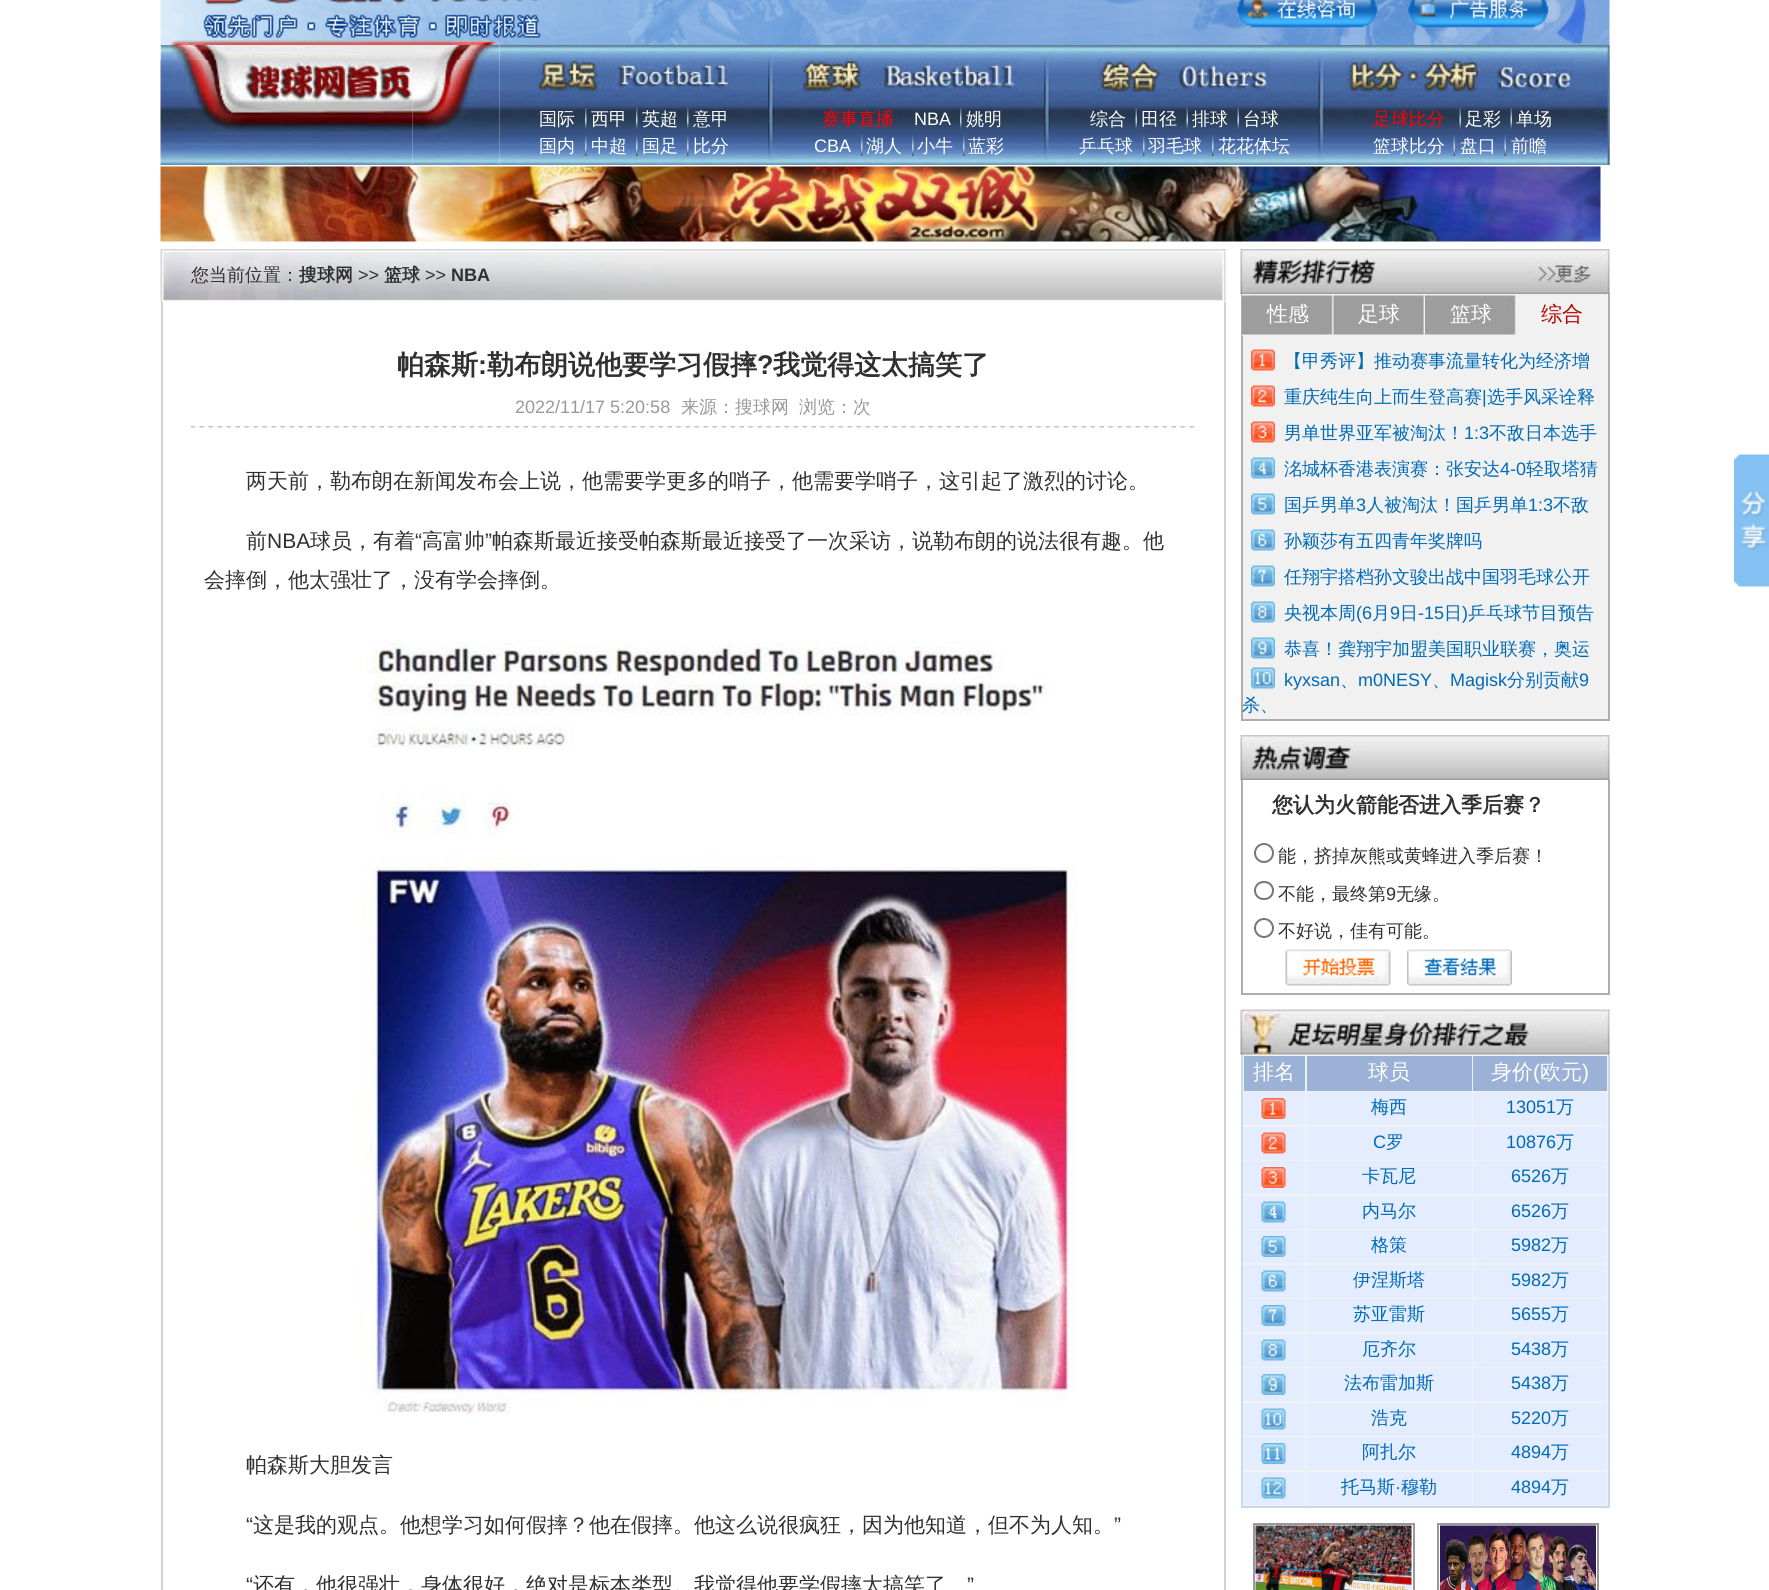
#include <cairo.h>
#include <math.h>
#include <stddef.h>

static cairo_t *c;
static void C(unsigned color){cairo_set_source_rgb(c, (color >> 16) / 255.0, (color >> 8 & 255) / 255.0, (color & 255) / 255.0);}
static void F(const char *family, double size, int italic, int bold){cairo_select_font_face(c, family, italic ? CAIRO_FONT_SLANT_ITALIC : CAIRO_FONT_SLANT_NORMAL,bold ? CAIRO_FONT_WEIGHT_BOLD : CAIRO_FONT_WEIGHT_NORMAL);cairo_set_font_size(c, size);}
static void T(double x, double y, const char *s){cairo_move_to(c, x, y);cairo_show_text(c, s);}
static void R(double x, double y, double w, double h){cairo_rectangle(c, x, y, w, h);cairo_fill(c);}
static void Q(double x, double y, double w, double h, double r){cairo_new_sub_path(c);cairo_arc(c, x + w - r, y + h - r, r, 0, M_PI / 2);cairo_arc(c, x + r, y + h - r, r, M_PI / 2, M_PI);cairo_arc(c, x + r, y + r, r, M_PI, 1.5 * M_PI);cairo_arc(c, x + w - r, y + r, r, 1.5 * M_PI, 2 * M_PI);cairo_close_path(c);}
static void I(const char *path, double x, double y, double w, double h){cairo_surface_t *image = cairo_image_surface_create_from_png(path);cairo_save(c);cairo_set_source_surface(c, image, x, y);cairo_rectangle(c, x, y, w, h);cairo_fill(c);cairo_restore(c);cairo_surface_destroy(image);}
int main(void) {
cairo_surface_t *surface = cairo_image_surface_create(CAIRO_FORMAT_RGB24, 1769, 1590);
c = cairo_create(surface);
cairo_font_options_t *options = cairo_font_options_create();
cairo_font_options_set_hint_metrics(options, CAIRO_HINT_METRICS_OFF);
cairo_font_options_set_hint_style(options, CAIRO_HINT_STYLE_NONE);
cairo_set_font_options(c, options);
cairo_set_miter_limit(c, 4);
C(0xffffff);
cairo_paint(c);
I("1.png",160,0,1450,45);
C(0xeaeef1);
R(412,45,88,120);
I("7.png",499,45,1111,120);
I("2.png",160,45,340,15);
I("3.png",160,60,80,105);
I("4.png",240,60,173,42);
I("5.png",412,60,88,105);
I("6.png",240,102,173,63);
I("8.png",538,58,193,34);
I("9.png",768,54,6,110);
I("10.png",801,58,217,34);
I("11.png",1044,57,6,106);
I("12.png",1098,58,173,34);
I("13.png",1318,54,7,111);
I("14.png",1345,58,229,34);
I("15.png",1594,45,16,120);
F("WenQuanYi Zen Hei Medium",18,0,0);
C(0xffffff);
T(539,125,"国际");
I("16.png",585,108,2,21);
T(591,125,"西甲");
I("17.png",636,108,2,21);
T(642,125,"英超");
I("18.png",687,108,2,21);
T(693,125,"意甲");
T(539,152,"国内");
I("19.png",585,135,2,21);
T(591,152,"中超");
I("20.png",636,135,2,21);
T(642,152,"国足");
I("21.png",687,135,2,21);
T(693,152,"比分");
C(0xff0000);
T(822,125,"赛事直播");
F("Liberation Sans",18,0,0);
C(0xffffff);
T(914,125,"NBA");
I("16.png",960,108,2,21);
F("WenQuanYi Zen Hei Medium",18,0,0);
T(966,125,"姚明");
F("Liberation Sans",18,0,0);
T(814,152,"CBA");
I("21.png",861,135,2,21);
F("WenQuanYi Zen Hei Medium",18,0,0);
T(866,152,"湖人");
I("21.png",912,135,2,21);
T(917,152,"小牛");
I("19.png",963,135,2,21);
T(968,152,"蓝彩");
T(1090,125,"综合");
I("22.png",1135,108,2,21);
T(1141,125,"田径");
I("22.png",1186,108,2,21);
T(1192,125,"排球");
I("23.png",1237,108,2,21);
T(1243,125,"台球");
T(1079,152,"乒乓球");
I("21.png",1143,135,2,21);
T(1148,152,"羽毛球");
I("19.png",1212,135,2,21);
T(1218,152,"花花体坛");
C(0xff0000);
T(1373,125,"足球比分");
I("24.png",1459,108,2,21);
C(0xffffff);
T(1465,125,"足彩");
I("24.png",1510,108,2,21);
T(1516,125,"单场");
T(1373,152,"篮球比分");
I("25.png",1453,135,2,21);
T(1460,152,"盘口");
I("26.png",1504,135,2,21);
T(1511,152,"前瞻");
I("27.png",160,166,1441,76);
I("28.png",160,249,1066,53);
C(0x303030);
T(191,281,"您当前位置：");
F("WenQuanYi Zen Hei",18,0,1);
T(299,281,"搜球网");
F("Liberation Sans",18,0,0);
T(358,281,">>");
F("WenQuanYi Zen Hei",18,0,1);
T(384,281,"篮球");
F("Liberation Sans",18,0,0);
T(425,281,">>");
F("Liberation Sans",18,0,1);
T(451,281,"NBA");
C(0xd2d2d2);
R(1224,302,2,1288);
R(161,302,2,1288);
I("29.png",190,426,1005,2);
F("WenQuanYi Zen Hei",27,0,1);
C(0x303030);
T(397,374,"帕森斯");
F("Liberation Sans",27,0,1);
T(478,374,":");
F("WenQuanYi Zen Hei",27,0,1);
T(487,374,"勒布朗说他要学习假摔");
F("Liberation Sans",27,0,1);
T(757,374,"?");
F("WenQuanYi Zen Hei",27,0,1);
T(773,374,"我觉得这太搞笑了");
F("Liberation Sans",18,0,0);
C(0x999999);
T(515,413,"2022/11/17 5:20:58");
F("WenQuanYi Zen Hei Medium",18,0,0);
T(681,413,"来源：搜球网");
T(799,413,"浏览：次");
F("WenQuanYi Zen Hei Medium",21,0,0);
C(0x303030);
T(246,488,"两天前，勒布朗在新闻发布会上说，他需要学更多的哨子，他需要学哨子，这引起了激烈的讨论。");
T(246,548,"前");
F("Liberation Sans",21,0,0);
T(267,548,"NBA");
F("WenQuanYi Zen Hei Medium",21,0,0);
T(310,548,"球员，有着");
F("Liberation Sans",21,0,0);
T(415,548,"“");
F("WenQuanYi Zen Hei Medium",21,0,0);
T(422,548,"高富帅");
F("Liberation Sans",21,0,0);
T(485,548,"”");
F("WenQuanYi Zen Hei Medium",21,0,0);
T(492,548,"帕森斯最近接受帕森斯最近接受了一次采访，说勒布朗的说法很有趣。他");
T(204,587,"会摔倒，他太强壮了，没有学会摔倒。");
I("30.png",359,640,718,775);
T(246,1472,"帕森斯大胆发言");
F("Liberation Sans",21,0,0);
T(246,1532,"“");
F("WenQuanYi Zen Hei Medium",21,0,0);
T(253,1532,"这是我的观点。他想学习如何假摔？他在假摔。他这么说很疯狂，因为他知道，但不为人知。");
F("Liberation Sans",21,0,0);
T(1114,1532,"”");
T(246,1592,"“");
F("WenQuanYi Zen Hei Medium",21,0,0);
T(253,1592,"还有，他很强壮，身体很好，绝对是标本类型。我觉得他要学假摔太搞笑了");
F("Liberation Sans",21,0,0);
T(967,1592,"”");
I("31.png",1240,249,370,45);
C(0xf1f1f1);
R(1243,294,365,425);
C(0xadadad);
R(1608,294,2,426);
R(1241,719,369,2);
R(1241,294,2,426);
I("32.png",1242,294,92,42);
F("WenQuanYi Zen Hei Medium",21,0,0);
C(0xffffff);
T(1267,321,"性感");
I("33.png",1333,294,92,42);
T(1358,321,"足球");
I("34.png",1425,294,92,41);
T(1450,321,"篮球");
C(0xebebeb);
R(1516,296,1,1);
C(0xb70000);
T(1541,321,"综合");
I("35.png",1251,349,24,22);
F("WenQuanYi Zen Hei Medium",18,0,0);
C(0x006ab5);
T(1284,367,"【甲秀评】推动赛事流量转化为经济增");
I("36.png",1251,385,24,22);
T(1284,403,"重庆纯生向上而生登高赛");
F("Liberation Sans",18,0,0);
T(1482,403,"|");
F("WenQuanYi Zen Hei Medium",18,0,0);
T(1487,403,"选手风采诠释");
I("37.png",1251,421,24,22);
T(1284,439,"男单世界亚军被淘汰！");
F("Liberation Sans",18,0,0);
T(1464,439,"1:3");
F("WenQuanYi Zen Hei Medium",18,0,0);
T(1489,439,"不敌日本选手");
I("38.png",1251,457,24,22);
T(1284,475,"洺城杯香港表演赛：张安达");
F("Liberation Sans",18,0,0);
T(1500,475,"4-0");
F("WenQuanYi Zen Hei Medium",18,0,0);
T(1526,475,"轻取塔猜");
I("39.png",1251,493,24,22);
T(1284,511,"国乒男单");
F("Liberation Sans",18,0,0);
T(1356,511,"3");
F("WenQuanYi Zen Hei Medium",18,0,0);
T(1366,511,"人被淘汰！国乒男单");
F("Liberation Sans",18,0,0);
T(1528,511,"1:3");
F("WenQuanYi Zen Hei Medium",18,0,0);
T(1553,511,"不敌");
I("40.png",1251,529,24,22);
T(1284,547,"孙颖莎有五四青年奖牌吗");
I("41.png",1251,565,24,22);
T(1284,583,"任翔宇搭档孙文骏出战中国羽毛球公开");
I("42.png",1251,601,24,22);
T(1284,619,"央视本周");
F("Liberation Sans",18,0,0);
T(1356,619,"(6");
F("WenQuanYi Zen Hei Medium",18,0,0);
T(1372,619,"月");
F("Liberation Sans",18,0,0);
T(1390,619,"9");
F("WenQuanYi Zen Hei Medium",18,0,0);
T(1400,619,"日");
F("Liberation Sans",18,0,0);
T(1418,619,"-15");
F("WenQuanYi Zen Hei Medium",18,0,0);
T(1444,619,"日");
F("Liberation Sans",18,0,0);
T(1462,619,")");
F("WenQuanYi Zen Hei Medium",18,0,0);
T(1468,619,"乒乓球节目预告");
I("43.png",1251,637,24,22);
T(1284,655,"恭喜！龚翔宇加盟美国职业联赛，奥运");
I("44.png",1251,667,24,22);
F("Liberation Sans",18,0,0);
T(1284,686,"kyxsan");
F("WenQuanYi Zen Hei Medium",18,0,0);
T(1340,686,"、");
F("Liberation Sans",18,0,0);
T(1358,686,"m0NESY");
F("WenQuanYi Zen Hei Medium",18,0,0);
T(1432,686,"、");
F("Liberation Sans",18,0,0);
T(1450,686,"Magisk");
F("WenQuanYi Zen Hei Medium",18,0,0);
T(1507,686,"分别贡献");
F("Liberation Sans",18,0,0);
T(1579,686,"9");
F("WenQuanYi Zen Hei Medium",18,0,0);
T(1242,711,"杀、");
I("45.png",1240,735,370,45);
C(0xadadad);
R(1608,780,2,215);
R(1241,993,369,2);
R(1241,780,2,215);
F("WenQuanYi Zen Hei",21,0,1);
C(0x303030);
T(1272,812,"您认为火箭能否进入季后赛？");
cairo_new_path(c);
cairo_arc(c,1264,853,9,0,2 * M_PI);
C(0x767676);
cairo_stroke(c);
F("WenQuanYi Zen Hei Medium",18,0,0);
C(0x303030);
T(1278,862,"能，挤掉灰熊或黄蜂进入季后赛！");
Q(1255,882,18,17,8.5);
C(0x767676);
cairo_stroke(c);
C(0x303030);
T(1278,900,"不能，最终第");
F("Liberation Sans",18,0,0);
T(1386,900,"9");
F("WenQuanYi Zen Hei Medium",18,0,0);
T(1396,900,"无缘。");
cairo_new_path(c);
cairo_arc(c,1264,928,9,0,2 * M_PI);
C(0x767676);
cairo_stroke(c);
C(0x303030);
T(1278,937,"不好说，佳有可能。");
I("46.png",1285,949,106,37);
I("47.png",1407,949,105,37);
I("48.png",1240,1009,370,46);
C(0xf1f1f1);
R(1243,1055,365,451);
C(0xc4dbeb);
R(1608,1055,2,453);
R(1241,1506,369,2);
R(1241,1055,2,453);
C(0x9cb1d6);
R(1244,1056,61,35);
F("WenQuanYi Zen Hei Medium",21,0,0);
C(0xffffff);
T(1253,1079,"排名");
C(0x9cb1d6);
R(1307,1056,165,35);
C(0xffffff);
T(1368,1079,"球员");
C(0x9cb1d6);
R(1473,1056,134,35);
C(0xffffff);
T(1491,1079,"身价");
F("Liberation Sans",21,0,0);
T(1533,1079,"(");
F("WenQuanYi Zen Hei Medium",21,0,0);
T(1540,1079,"欧元");
F("Liberation Sans",21,0,0);
T(1582,1079,")");
C(0xe4ecff);
R(1244,1092,61,33);
I("49.png",1261,1098,25,21);
R(1307,1092,165,33);
F("WenQuanYi Zen Hei Medium",18,0,0);
C(0x006ab5);
T(1371,1113,"梅西");
C(0xe4ecff);
R(1473,1092,134,33);
F("Liberation Sans",18,0,0);
C(0x006ab5);
T(1506,1113,"13051");
F("WenQuanYi Zen Hei Medium",18,0,0);
T(1556,1113,"万");
C(0xe4ecff);
R(1244,1127,61,33);
I("50.png",1261,1132,25,22);
R(1307,1127,165,33);
F("Liberation Sans",18,0,0);
C(0x006ab5);
T(1373,1148,"C");
F("WenQuanYi Zen Hei Medium",18,0,0);
T(1386,1148,"罗");
C(0xe4ecff);
R(1473,1127,134,33);
F("Liberation Sans",18,0,0);
C(0x006ab5);
T(1506,1148,"10876");
F("WenQuanYi Zen Hei Medium",18,0,0);
T(1556,1148,"万");
C(0xe4ecff);
R(1244,1161,61,33);
I("51.png",1261,1167,25,21);
R(1307,1161,165,33);
C(0x006ab5);
T(1362,1182,"卡瓦尼");
C(0xe4ecff);
R(1473,1161,134,33);
F("Liberation Sans",18,0,0);
C(0x006ab5);
T(1511,1182,"6526");
F("WenQuanYi Zen Hei Medium",18,0,0);
T(1551,1182,"万");
C(0xe4ecff);
R(1244,1196,61,33);
I("52.png",1261,1201,25,22);
R(1307,1196,165,33);
C(0x006ab5);
T(1362,1217,"内马尔");
C(0xe4ecff);
R(1473,1196,134,33);
F("Liberation Sans",18,0,0);
C(0x006ab5);
T(1511,1217,"6526");
F("WenQuanYi Zen Hei Medium",18,0,0);
T(1551,1217,"万");
C(0xe4ecff);
R(1244,1230,61,33);
I("53.png",1261,1236,25,21);
R(1307,1230,165,33);
C(0x006ab5);
T(1371,1251,"格策");
C(0xe4ecff);
R(1473,1230,134,33);
F("Liberation Sans",18,0,0);
C(0x006ab5);
T(1511,1251,"5982");
F("WenQuanYi Zen Hei Medium",18,0,0);
T(1551,1251,"万");
C(0xe4ecff);
R(1244,1265,61,33);
I("54.png",1261,1270,25,22);
R(1307,1265,165,33);
C(0x006ab5);
T(1353,1286,"伊涅斯塔");
C(0xe4ecff);
R(1473,1265,134,33);
F("Liberation Sans",18,0,0);
C(0x006ab5);
T(1511,1286,"5982");
F("WenQuanYi Zen Hei Medium",18,0,0);
T(1551,1286,"万");
C(0xe4ecff);
R(1244,1299,61,33);
I("55.png",1261,1305,25,21);
R(1307,1299,165,33);
C(0x006ab5);
T(1353,1320,"苏亚雷斯");
C(0xe4ecff);
R(1473,1299,134,33);
F("Liberation Sans",18,0,0);
C(0x006ab5);
T(1511,1320,"5655");
F("WenQuanYi Zen Hei Medium",18,0,0);
T(1551,1320,"万");
C(0xe4ecff);
R(1244,1334,61,33);
I("56.png",1261,1339,25,22);
R(1307,1334,165,33);
C(0x006ab5);
T(1362,1355,"厄齐尔");
C(0xe4ecff);
R(1473,1334,134,33);
F("Liberation Sans",18,0,0);
C(0x006ab5);
T(1511,1355,"5438");
F("WenQuanYi Zen Hei Medium",18,0,0);
T(1551,1355,"万");
C(0xe4ecff);
R(1244,1368,61,33);
I("57.png",1261,1374,25,21);
R(1307,1368,165,33);
C(0x006ab5);
T(1344,1389,"法布雷加斯");
C(0xe4ecff);
R(1473,1368,134,33);
F("Liberation Sans",18,0,0);
C(0x006ab5);
T(1511,1389,"5438");
F("WenQuanYi Zen Hei Medium",18,0,0);
T(1551,1389,"万");
C(0xe4ecff);
R(1244,1403,61,33);
I("58.png",1261,1408,25,22);
R(1307,1403,165,33);
C(0x006ab5);
T(1371,1424,"浩克");
C(0xe4ecff);
R(1473,1403,134,33);
F("Liberation Sans",18,0,0);
C(0x006ab5);
T(1511,1424,"5220");
F("WenQuanYi Zen Hei Medium",18,0,0);
T(1551,1424,"万");
C(0xe4ecff);
R(1244,1437,61,33);
I("59.png",1261,1443,25,21);
R(1307,1437,165,33);
C(0x006ab5);
T(1362,1458,"阿扎尔");
C(0xe4ecff);
R(1473,1437,134,33);
F("Liberation Sans",18,0,0);
C(0x006ab5);
T(1511,1458,"4894");
F("WenQuanYi Zen Hei Medium",18,0,0);
T(1551,1458,"万");
C(0xe4ecff);
R(1244,1472,61,33);
I("60.png",1261,1477,25,22);
R(1307,1472,165,33);
C(0x006ab5);
T(1341,1493,"托马斯");
F("Liberation Sans",18,0,0);
T(1395,1493,"·");
F("WenQuanYi Zen Hei Medium",18,0,0);
T(1401,1493,"穆勒");
C(0xe4ecff);
R(1473,1472,134,33);
F("Liberation Sans",18,0,0);
C(0x006ab5);
T(1511,1493,"4894");
F("WenQuanYi Zen Hei Medium",18,0,0);
T(1551,1493,"万");
cairo_rectangle(c,1254,1524,160,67);
C(0x999999);
cairo_stroke(c);
I("61.png",1255,1525,157,65);
cairo_rectangle(c,1438,1524,160,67);
cairo_stroke(c);
I("62.png",1440,1525,156,65);
I("63.png",1734,454,35,133);
cairo_surface_write_to_png(surface, "o.png");
cairo_font_options_destroy(options);
cairo_destroy(c);
cairo_surface_destroy(surface);
return 0;
}
